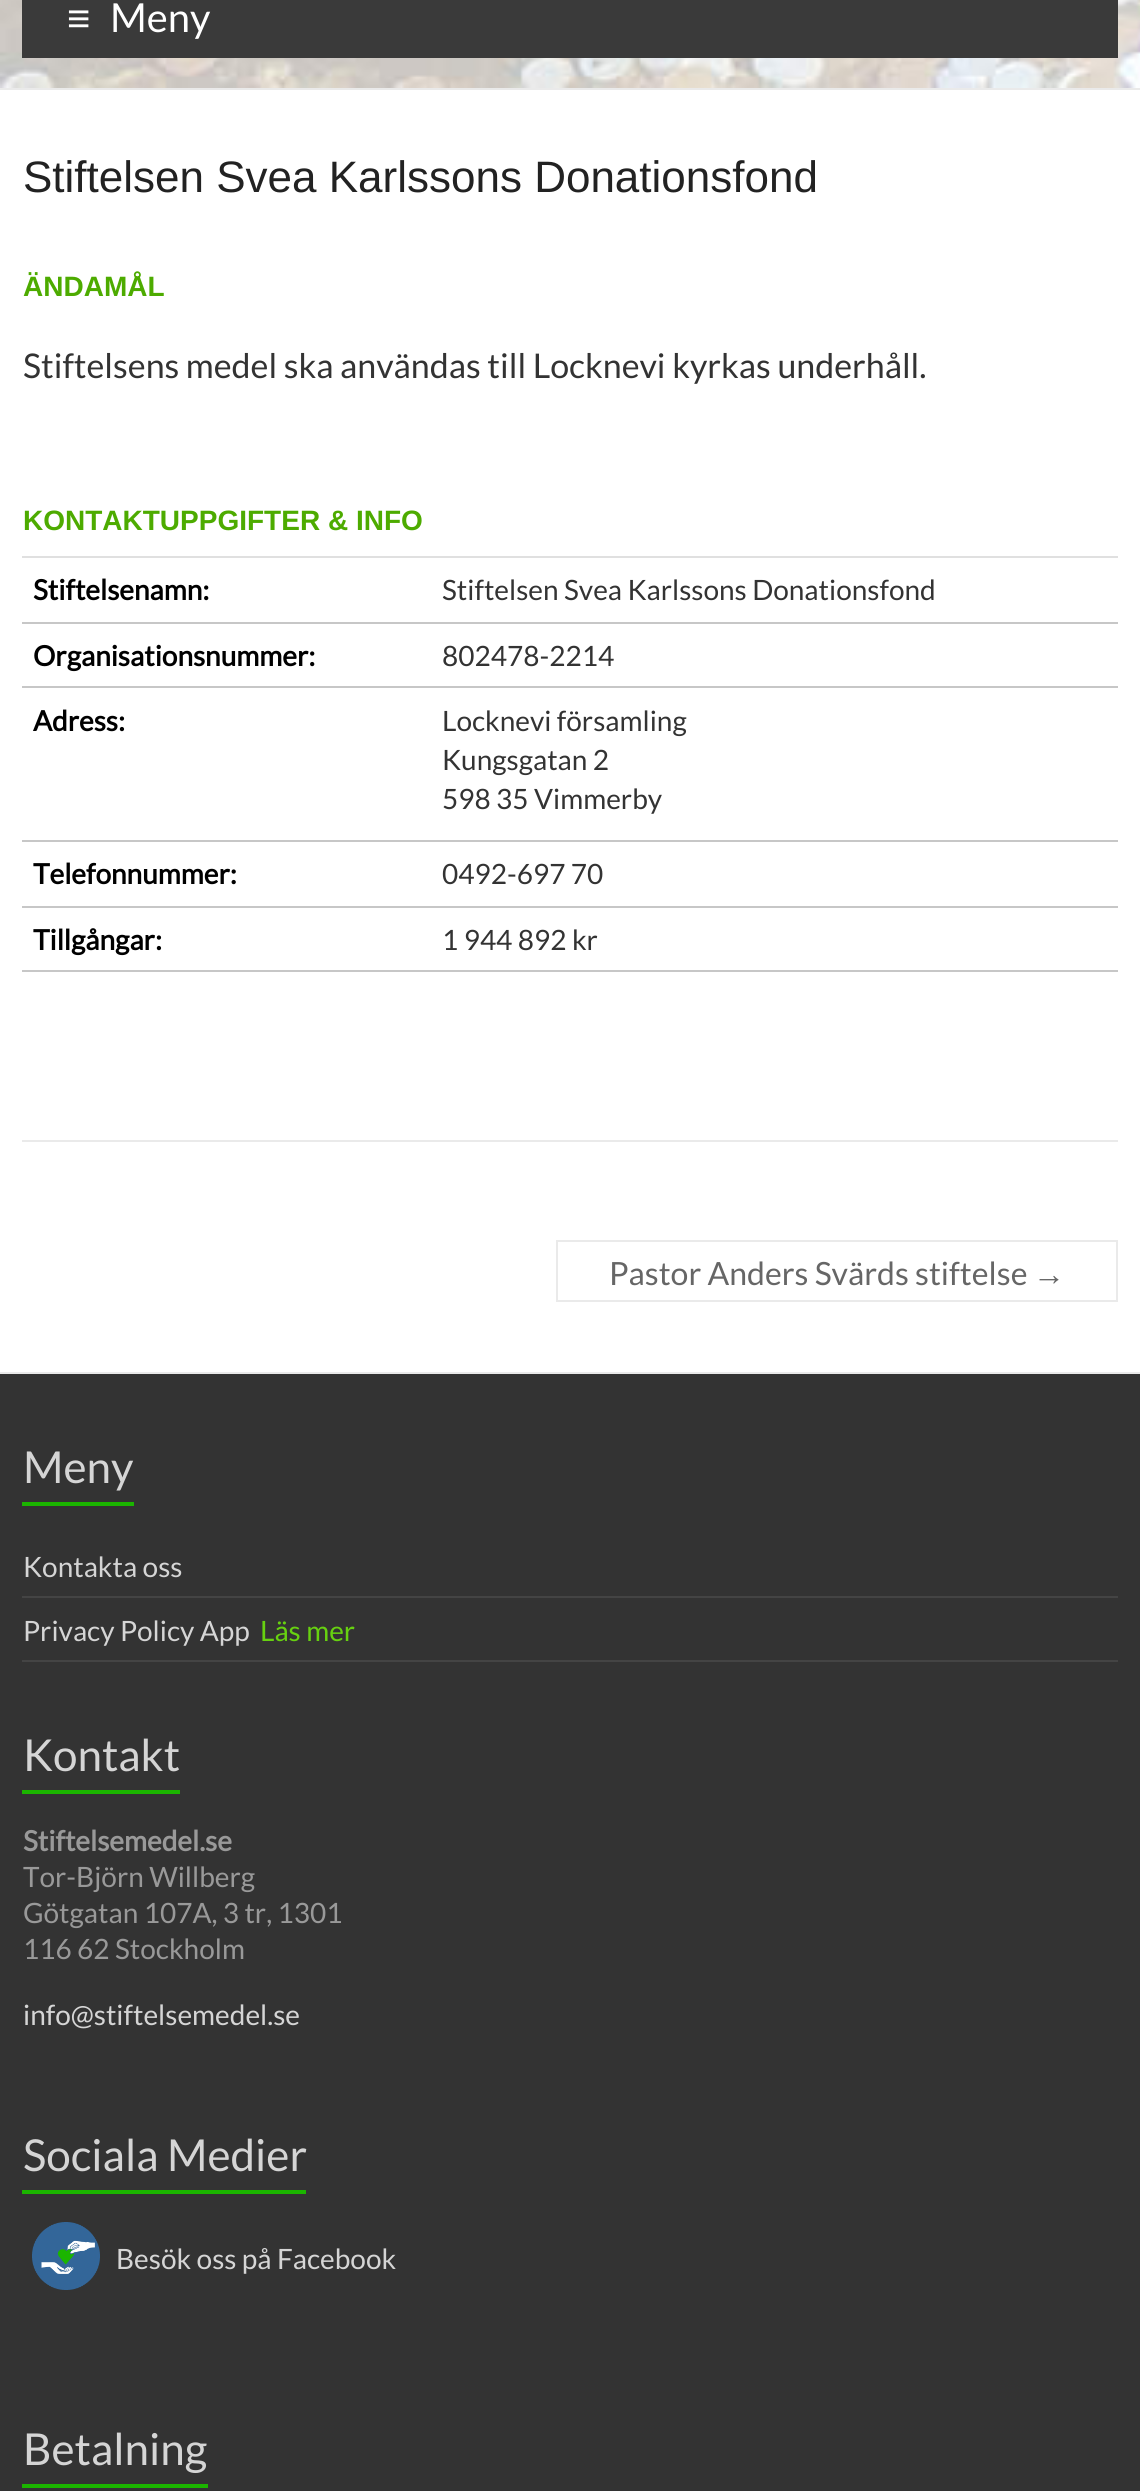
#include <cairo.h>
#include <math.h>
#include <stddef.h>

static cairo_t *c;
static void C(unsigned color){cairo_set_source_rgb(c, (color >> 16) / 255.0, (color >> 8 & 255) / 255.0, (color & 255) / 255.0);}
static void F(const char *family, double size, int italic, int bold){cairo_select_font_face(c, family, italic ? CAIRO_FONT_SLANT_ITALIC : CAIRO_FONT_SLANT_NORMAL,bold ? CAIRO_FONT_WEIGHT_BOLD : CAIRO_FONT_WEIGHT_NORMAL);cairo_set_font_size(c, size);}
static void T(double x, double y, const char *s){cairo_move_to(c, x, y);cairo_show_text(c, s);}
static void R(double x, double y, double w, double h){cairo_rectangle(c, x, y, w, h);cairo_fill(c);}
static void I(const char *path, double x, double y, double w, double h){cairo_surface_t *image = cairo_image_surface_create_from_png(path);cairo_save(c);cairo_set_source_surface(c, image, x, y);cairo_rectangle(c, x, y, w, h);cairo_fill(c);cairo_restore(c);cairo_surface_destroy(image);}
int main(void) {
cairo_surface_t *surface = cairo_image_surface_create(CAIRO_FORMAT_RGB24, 1140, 2491);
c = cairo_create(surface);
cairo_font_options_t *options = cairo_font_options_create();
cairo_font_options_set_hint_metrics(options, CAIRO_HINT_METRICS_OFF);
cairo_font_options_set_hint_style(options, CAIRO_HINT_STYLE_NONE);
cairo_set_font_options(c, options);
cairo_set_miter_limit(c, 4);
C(0xffffff);
cairo_paint(c);
I("1.png",0,0,1140,88);
C(0xeaeaea);
R(0,88,1140,2);
C(0x3a3a3a);
R(22,0,1096,58);
F("Liberation Sans",40,0,0);
C(0xffffff);
T(67,32,"≡");
F("Lato",40,0,0);
T(110,32,"Meny");
F("Liberation Sans",44,0,0);
C(0x222222);
T(23,192,"Stiftelsen Svea Karlssons Donationsfond");
F("Liberation Sans",28,0,1);
C(0x4dab00);
T(23,296,"ÄNDAMÅL");
F("Lato",34,0,0);
C(0x333333);
T(23,378,"Stiftelsens medel ska användas till Locknevi kyrkas underhåll.");
C(0xe0e0e0);
R(22,556,1096,2);
F("Liberation Sans",28,0,1);
C(0x4dab00);
T(23,530,"KONTAKTUPPGIFTER & INFO");
C(0xc7c7c7);
R(22,622,1096,2);
F("Lato",28,0,1);
C(0x000000);
T(33,600,"Stiftelsenamn:");
F("Lato",28,0,0);
C(0x333333);
T(442,600,"Stiftelsen Svea Karlssons Donationsfond");
C(0xc7c7c7);
R(22,686,1096,2);
F("Lato",28,0,1);
C(0x000000);
T(33,666,"Organisationsnummer:");
F("Lato",28,0,0);
C(0x333333);
T(442,666,"802478-2214");
C(0xc7c7c7);
R(22,840,1096,2);
F("Lato",28,0,1);
C(0x000000);
T(33,731,"Adress:");
F("Lato",28,0,0);
C(0x333333);
T(442,731,"Locknevi församling");
T(442,770,"Kungsgatan 2");
T(442,809,"598 35 Vimmerby");
C(0xc7c7c7);
R(22,906,1096,2);
F("Lato",28,0,1);
C(0x000000);
T(33,884,"Telefonnummer:");
F("Lato",28,0,0);
C(0x333333);
T(442,884,"0492-697 70");
C(0xc7c7c7);
R(22,970,1096,2);
F("Lato",28,0,1);
C(0x000000);
T(33,950,"Tillgångar:");
F("Lato",28,0,0);
C(0x333333);
T(442,950,"1 944 892 kr");
C(0xeaeaea);
R(22,1140,1096,2);
F("Lato",32,0,0);
C(0x666666);
T(609,1285,"Pastor Anders Svärds stiftelse");
C(0xeaeaea);
R(556,1240,562,2);
R(556,1300,478,2);
R(556,1240,2,62);
F("Liberation Sans",32,0,0);
C(0x666666);
T(1033,1285,"→");
C(0xeaeaea);
R(1116,1240,2,62);
R(1034,1300,84,2);
C(0x333333);
R(0,1374,1140,1117);
C(0xeaeaea);
R(0,1372,1140,2);
F("Lato",44,0,0);
C(0xd5d5d5);
T(23,1483,"Meny");
C(0x1bb500);
R(22,1502,112,4);
C(0x444444);
R(22,1596,1096,2);
F("Lato",28,0,0);
C(0xd5d5d5);
T(23,1577,"Kontakta oss");
C(0x444444);
R(22,1660,1096,2);
C(0xd5d5d5);
T(23,1641,"Privacy Policy App");
C(0x67d110);
T(260,1641,"Läs mer");
F("Lato",44,0,0);
C(0xd5d5d5);
T(23,1771,"Kontakt");
C(0x1bb500);
R(22,1790,158,4);
F("Lato",28,0,1);
C(0x999999);
T(23,1851,"Stiftelsemedel.se");
F("Lato",28,0,0);
T(23,1887,"Tor-Björn Willberg");
T(23,1923,"Götgatan 107A, 3 tr, 1301");
T(23,1959,"116 62 Stockholm");
C(0xd5d5d5);
T(23,2025,"info@stiftelsemedel.se");
F("Lato",44,0,0);
T(23,2171,"Sociala Medier");
C(0x1bb500);
R(22,2190,284,4);
I("2.png",32,2222,68,68);
F("Lato",28,0,0);
C(0xd5d5d5);
T(116,2269,"Besök oss på Facebook");
F("Lato",44,0,0);
T(23,2465,"Betalning");
C(0x1bb500);
R(22,2484,186,4);
cairo_surface_write_to_png(surface, "o.png");
cairo_font_options_destroy(options);
cairo_destroy(c);
cairo_surface_destroy(surface);
return 0;
}
